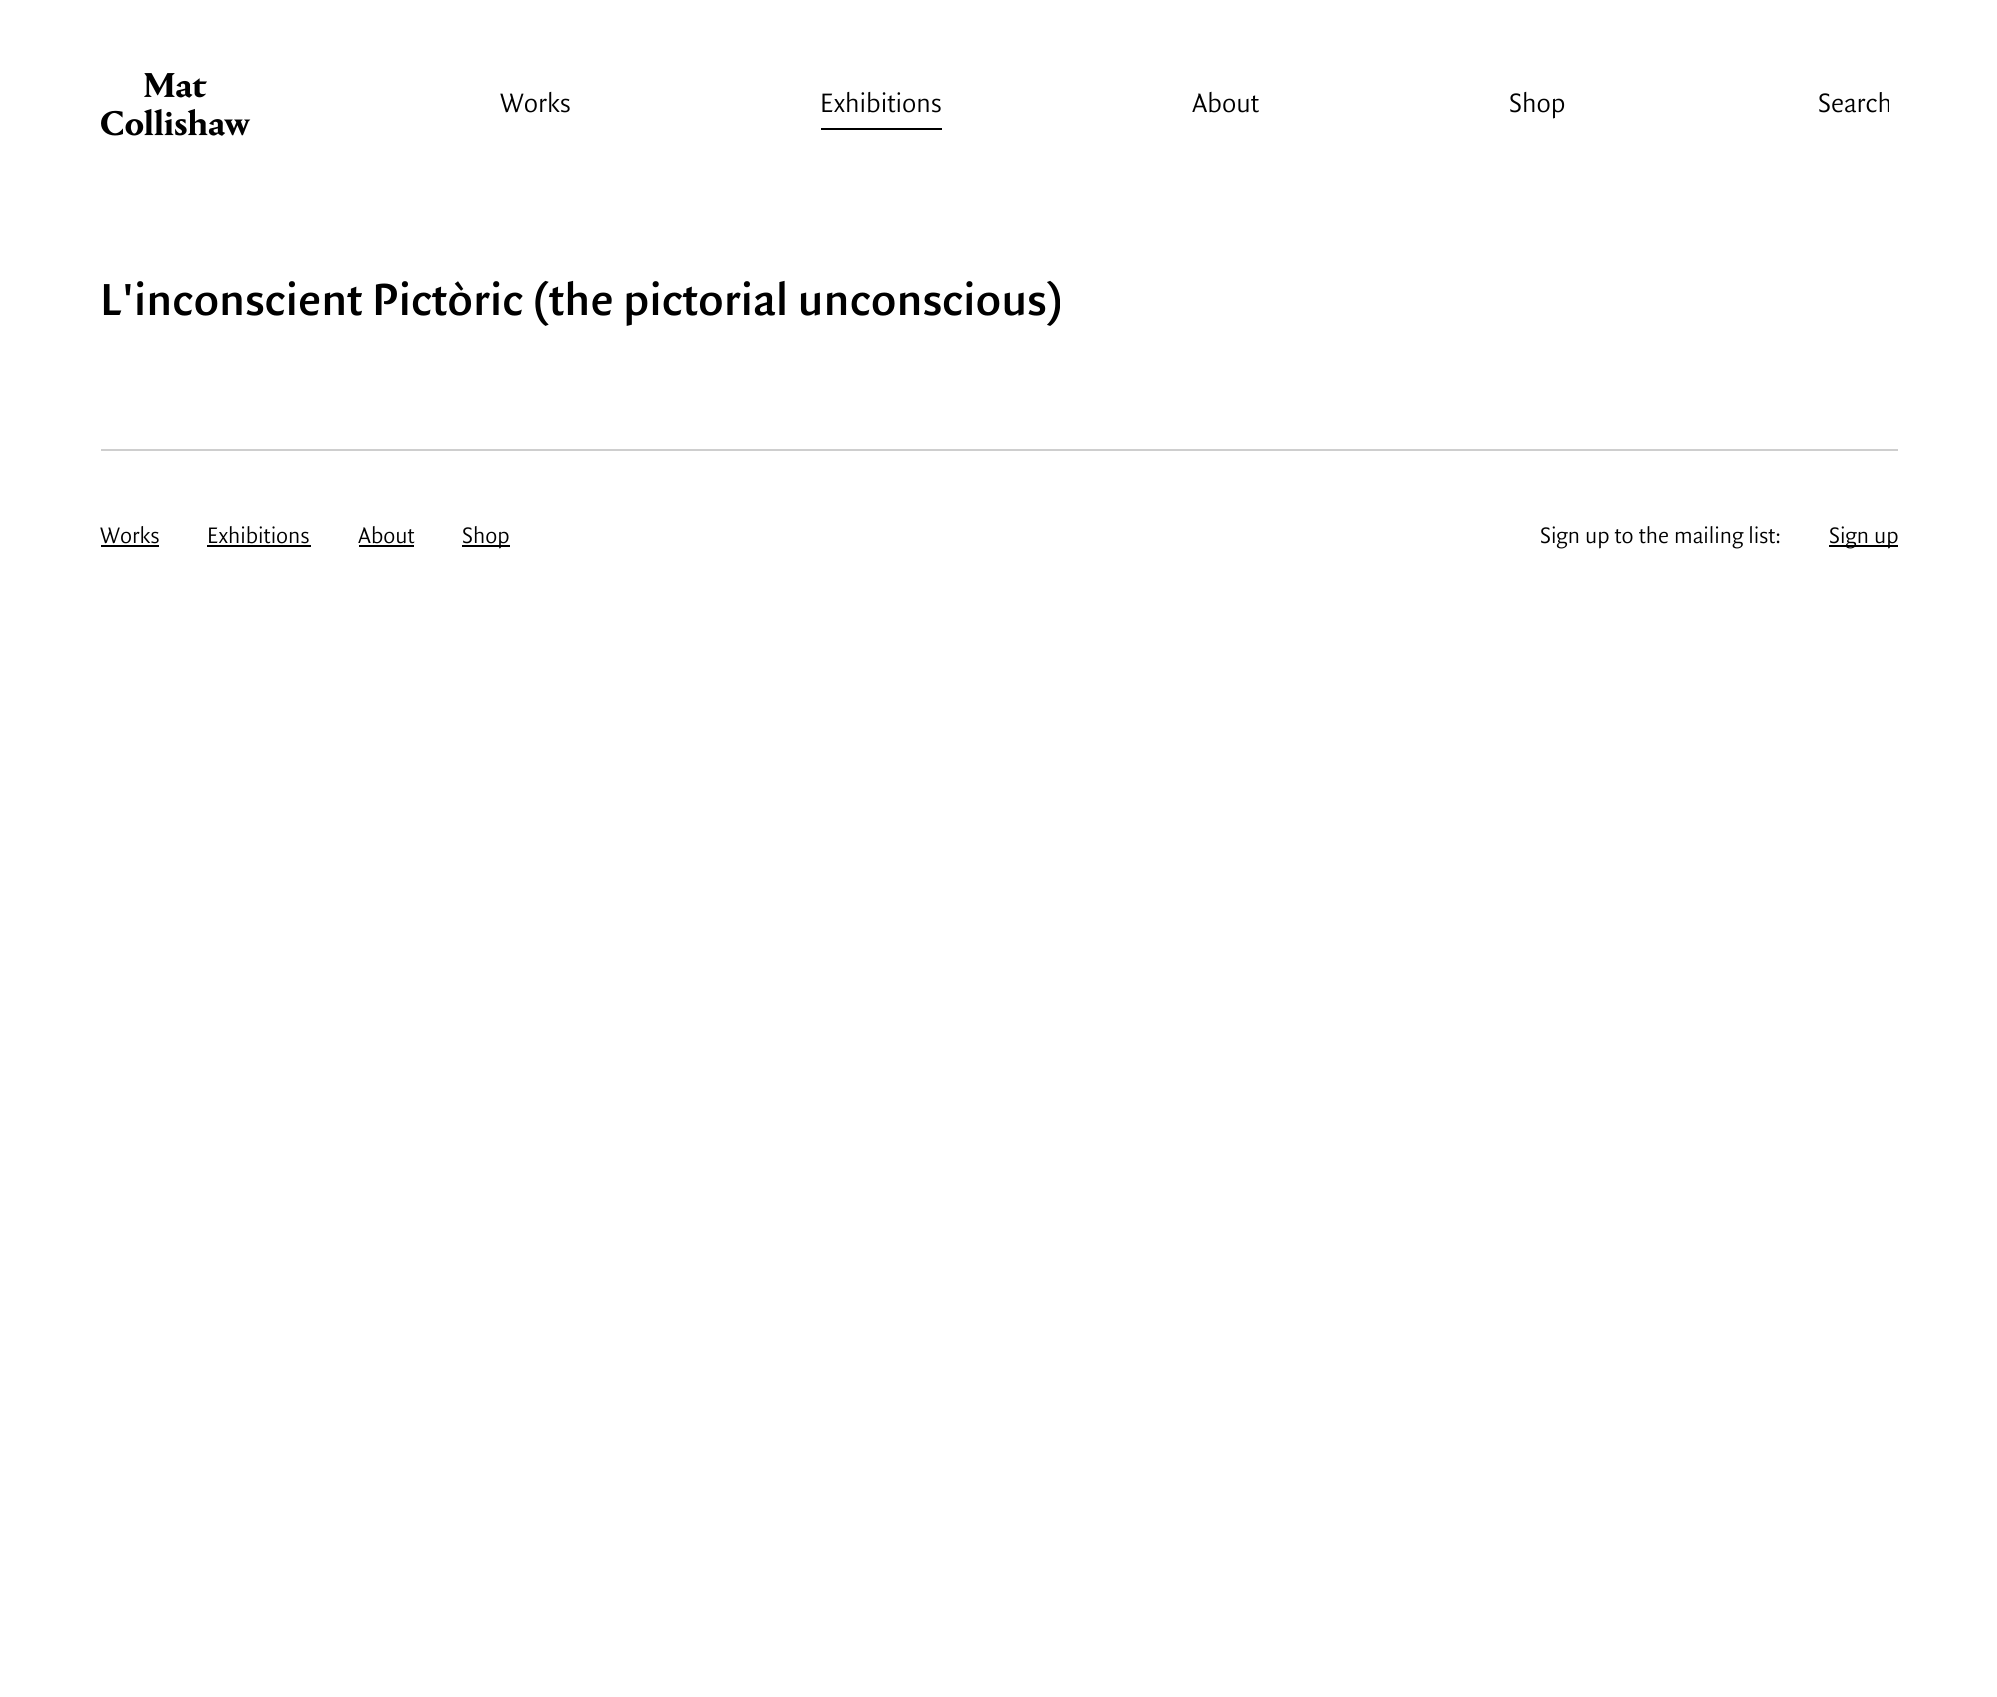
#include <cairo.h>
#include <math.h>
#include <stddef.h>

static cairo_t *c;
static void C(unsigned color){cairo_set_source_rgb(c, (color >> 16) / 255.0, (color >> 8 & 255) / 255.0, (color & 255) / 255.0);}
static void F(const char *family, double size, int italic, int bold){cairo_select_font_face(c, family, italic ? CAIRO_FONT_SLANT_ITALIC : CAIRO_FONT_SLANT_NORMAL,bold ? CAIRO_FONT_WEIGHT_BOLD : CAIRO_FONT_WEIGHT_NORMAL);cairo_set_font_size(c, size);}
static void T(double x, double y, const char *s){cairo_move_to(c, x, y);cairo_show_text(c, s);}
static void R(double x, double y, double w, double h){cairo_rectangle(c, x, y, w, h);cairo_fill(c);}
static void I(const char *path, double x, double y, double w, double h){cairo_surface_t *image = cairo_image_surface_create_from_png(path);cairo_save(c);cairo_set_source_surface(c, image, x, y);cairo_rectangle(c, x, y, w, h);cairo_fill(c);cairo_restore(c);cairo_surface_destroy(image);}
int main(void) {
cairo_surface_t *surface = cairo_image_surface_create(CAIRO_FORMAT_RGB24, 1997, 1697);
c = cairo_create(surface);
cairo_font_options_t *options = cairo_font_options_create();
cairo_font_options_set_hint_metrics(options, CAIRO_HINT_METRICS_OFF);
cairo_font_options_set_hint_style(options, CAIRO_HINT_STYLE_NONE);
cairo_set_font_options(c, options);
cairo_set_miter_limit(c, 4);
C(0xffffff);
cairo_paint(c);
I("1.png",101,73,150,63);
F("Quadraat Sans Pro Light",28.5,0,0);
C(0x000000);
T(500,112,"Works");
T(820,112,"Exhibitions");
R(821,128,121,2);
T(1192,112,"About");
T(1509,112,"Shop");
cairo_save(c);
cairo_rectangle(c,1818,92,71,28);
cairo_clip(c);
T(1818,112,"Search");
cairo_restore(c);
F("Quadraat Sans Pro SemiBold",48,0,0);
T(100,315,"L'inconscient Pictòric (the pictorial unconscious)");
C(0xcecece);
R(101,449,1797,2);
F("Quadraat Sans Pro Light",24,0,0);
C(0x000000);
T(100,543,"Works");
R(101,545,58,2);
T(207,543,"Exhibitions");
R(207,545,104,2);
T(358,543,"About");
R(359,545,55,2);
R(462,545,48,2);
T(462,543,"Shop");
T(1540,543,"Sign up to the mailing list:");
R(1829,545,69,2);
T(1829,543,"Sign up");
cairo_surface_write_to_png(surface, "o.png");
cairo_font_options_destroy(options);
cairo_destroy(c);
cairo_surface_destroy(surface);
return 0;
}
